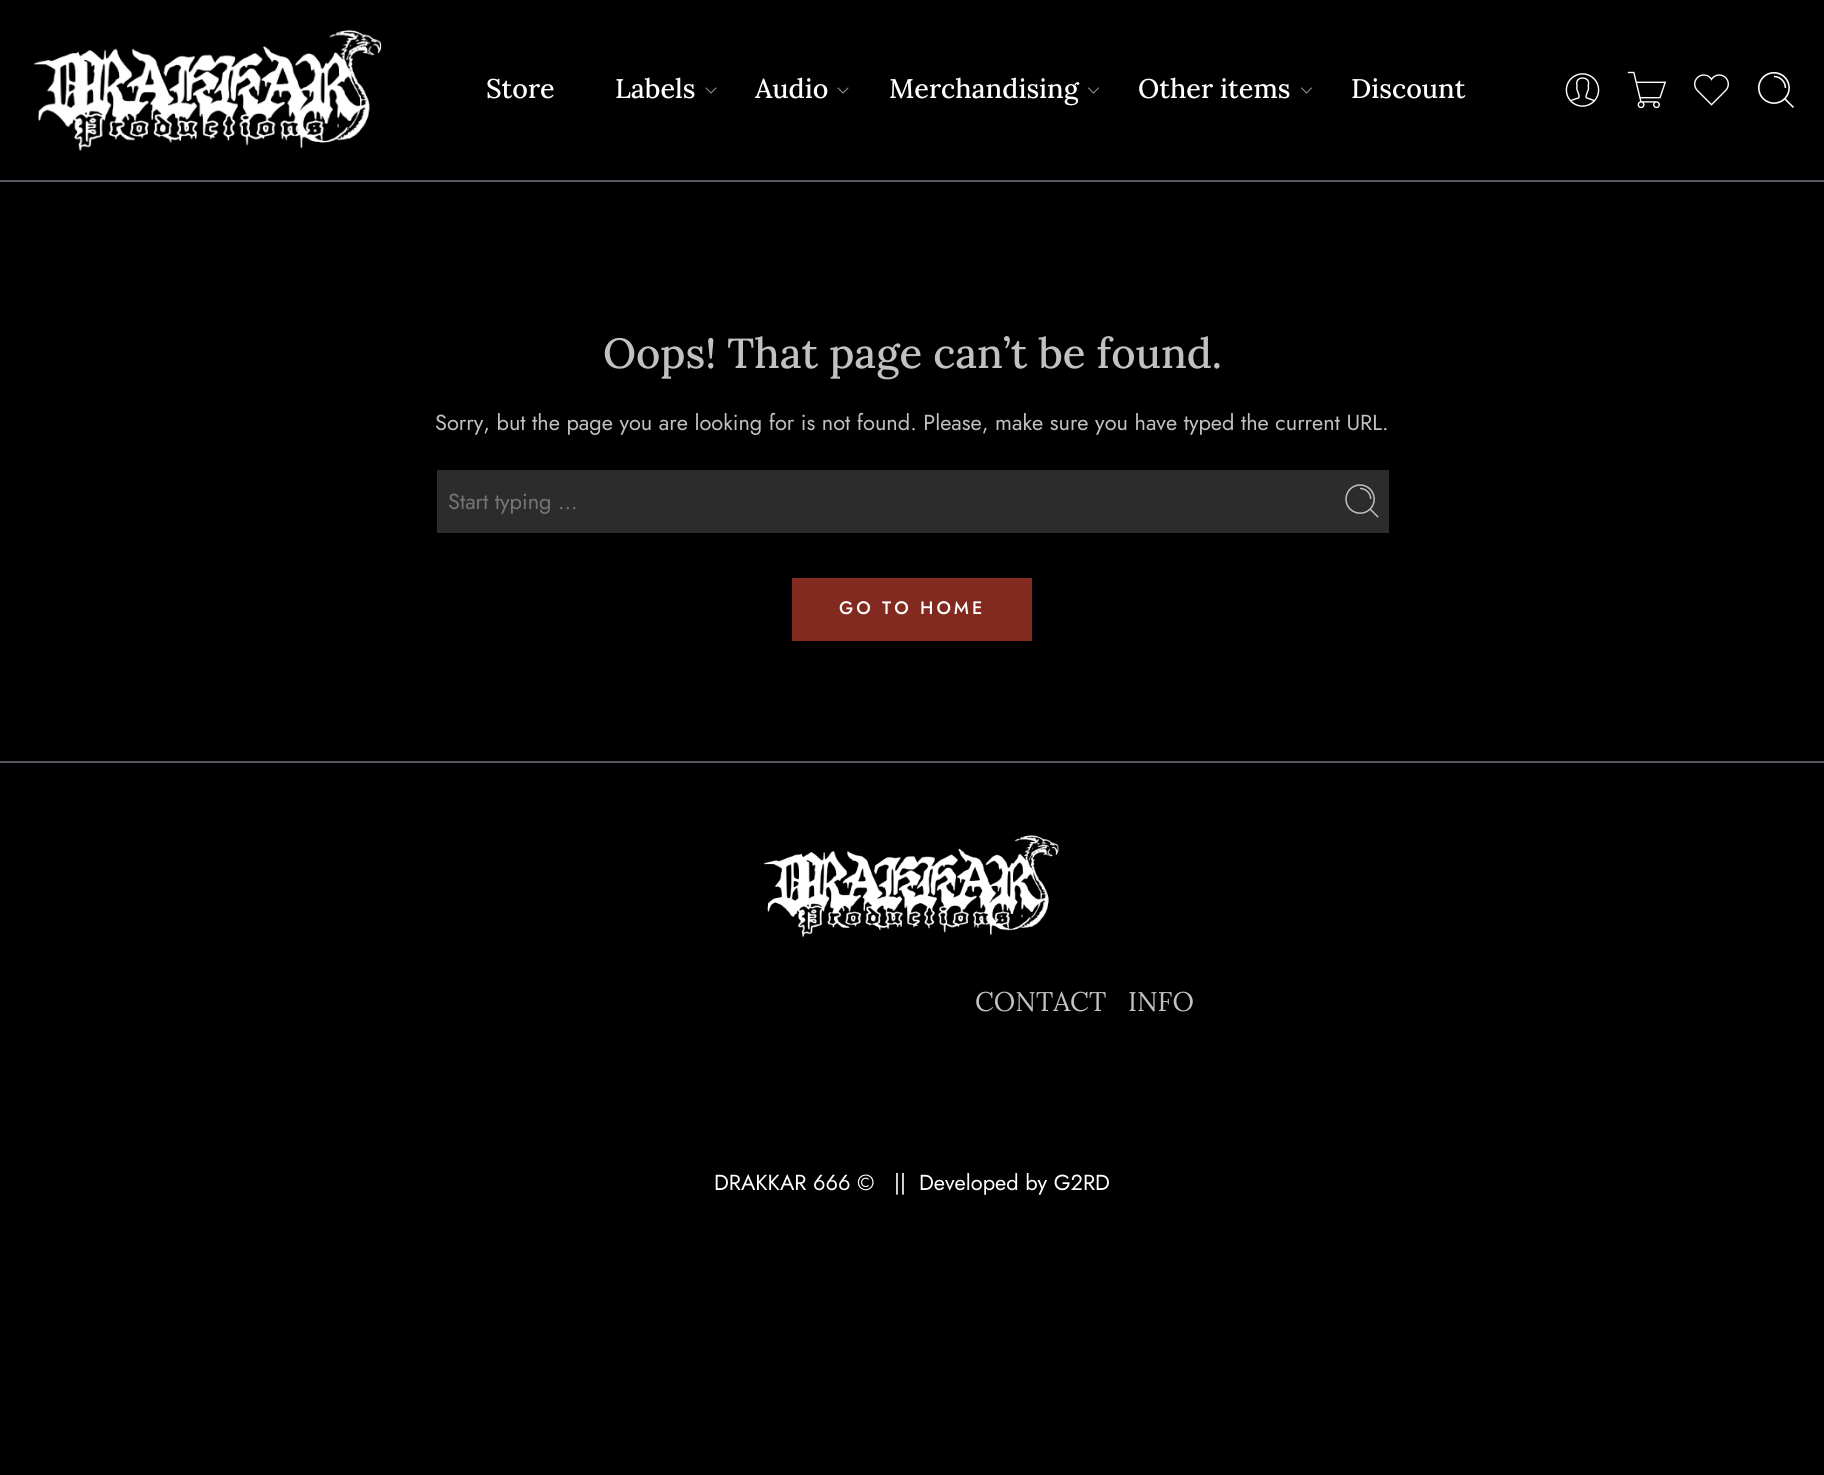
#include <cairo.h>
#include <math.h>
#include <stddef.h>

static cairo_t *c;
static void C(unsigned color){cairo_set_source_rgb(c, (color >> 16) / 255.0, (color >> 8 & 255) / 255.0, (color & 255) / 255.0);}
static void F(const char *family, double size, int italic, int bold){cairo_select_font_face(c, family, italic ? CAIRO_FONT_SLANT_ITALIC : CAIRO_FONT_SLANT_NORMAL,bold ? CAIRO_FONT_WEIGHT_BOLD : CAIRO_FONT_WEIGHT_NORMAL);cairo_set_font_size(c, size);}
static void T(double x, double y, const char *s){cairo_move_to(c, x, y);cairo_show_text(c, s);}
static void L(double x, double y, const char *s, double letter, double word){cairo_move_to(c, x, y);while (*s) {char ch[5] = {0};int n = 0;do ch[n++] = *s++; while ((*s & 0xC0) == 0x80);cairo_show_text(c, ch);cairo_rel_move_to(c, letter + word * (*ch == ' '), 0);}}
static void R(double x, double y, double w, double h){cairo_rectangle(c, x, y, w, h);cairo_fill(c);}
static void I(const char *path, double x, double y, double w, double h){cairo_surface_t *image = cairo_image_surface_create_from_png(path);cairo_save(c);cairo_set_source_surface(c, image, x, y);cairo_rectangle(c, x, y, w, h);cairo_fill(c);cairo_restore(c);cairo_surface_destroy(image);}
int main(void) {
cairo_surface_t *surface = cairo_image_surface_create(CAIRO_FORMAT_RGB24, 1824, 1475);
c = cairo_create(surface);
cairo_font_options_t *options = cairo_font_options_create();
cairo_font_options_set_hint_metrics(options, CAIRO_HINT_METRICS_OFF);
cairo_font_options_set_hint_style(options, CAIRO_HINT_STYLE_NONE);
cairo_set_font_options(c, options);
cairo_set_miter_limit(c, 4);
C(0x000000);
cairo_paint(c);
C(0x54595f);
R(0,180,1824,2);
I("1.png",33,30,349,121);
F("Lora Medium",27,0,0);
C(0xffffff);
T(486,98,"Store");
T(615,98,"Labels");
I("2.png",705,87,12,7);
T(755,98,"Audio");
I("2.png",837,87,12,7);
T(889,98,"Merchandising");
I("3.png",1088,87,11,7);
T(1138,98,"Other items");
I("3.png",1301,87,11,7);
T(1351,98,"Discount");
I("4.png",1565,73,35,34);
I("5.png",1627,71,40,38);
I("6.png",1694,74,35,32);
I("7.png",1757,72,37,36);
F("Lora Medium",42,0,0);
C(0xc1c1c1);
T(603,368,"Oops! That page can’t be found.");
F("Jost",21.75,0,0);
T(435,430,"Sorry, but the page you are looking for is not found. Please, make sure you have typed the current URL.");
C(0x2c2c2c);
R(437,470,952,63);
C(0x757575);
T(448,509,"Start typing ...");
I("8.png",1345,484,34,34);
C(0x822a20);
R(792,578,240,63);
F("Jost Medium",18,0,0);
C(0xffffff);
L(839,614,"GO TO HOME",3,0);
C(0x54595f);
R(0,761,1824,2);
I("9.png",763,835,296,102);
F("Lora",27,0,0);
C(0xc1c1c1);
T(975,1011,"CONTACT");
T(1128,1011,"INFO");
F("Jost",21.75,0,0);
C(0xffffff);
T(714,1190,"DRAKKAR 666 ©   ||  Developed by G2RD");
cairo_surface_write_to_png(surface, "o.png");
cairo_font_options_destroy(options);
cairo_destroy(c);
cairo_surface_destroy(surface);
return 0;
}
